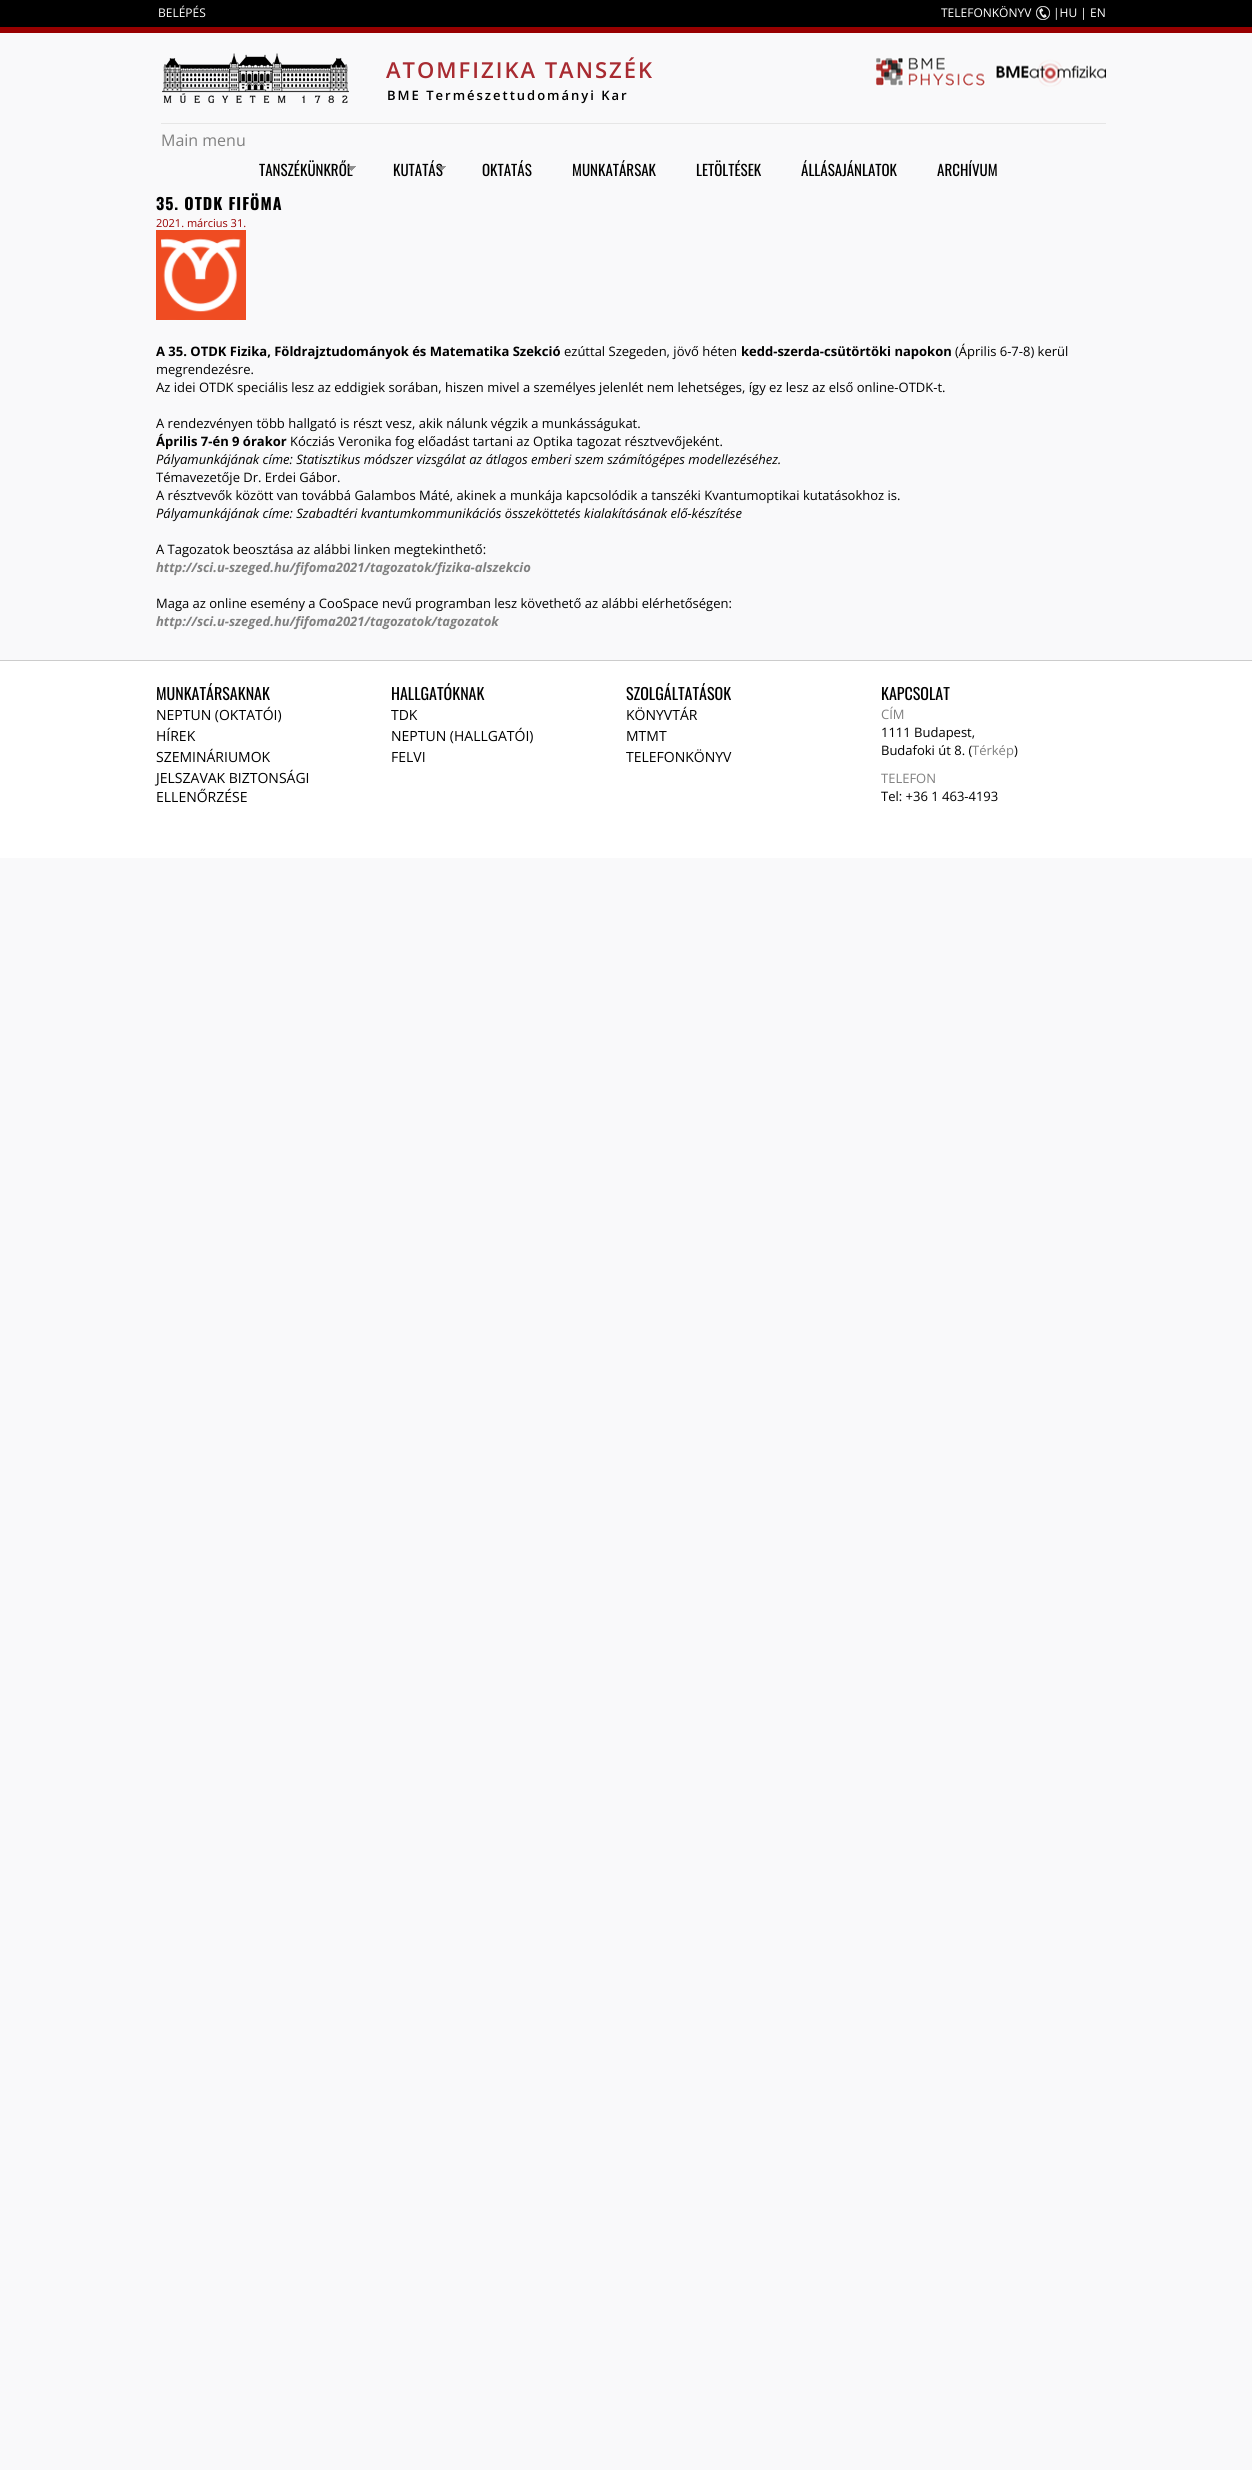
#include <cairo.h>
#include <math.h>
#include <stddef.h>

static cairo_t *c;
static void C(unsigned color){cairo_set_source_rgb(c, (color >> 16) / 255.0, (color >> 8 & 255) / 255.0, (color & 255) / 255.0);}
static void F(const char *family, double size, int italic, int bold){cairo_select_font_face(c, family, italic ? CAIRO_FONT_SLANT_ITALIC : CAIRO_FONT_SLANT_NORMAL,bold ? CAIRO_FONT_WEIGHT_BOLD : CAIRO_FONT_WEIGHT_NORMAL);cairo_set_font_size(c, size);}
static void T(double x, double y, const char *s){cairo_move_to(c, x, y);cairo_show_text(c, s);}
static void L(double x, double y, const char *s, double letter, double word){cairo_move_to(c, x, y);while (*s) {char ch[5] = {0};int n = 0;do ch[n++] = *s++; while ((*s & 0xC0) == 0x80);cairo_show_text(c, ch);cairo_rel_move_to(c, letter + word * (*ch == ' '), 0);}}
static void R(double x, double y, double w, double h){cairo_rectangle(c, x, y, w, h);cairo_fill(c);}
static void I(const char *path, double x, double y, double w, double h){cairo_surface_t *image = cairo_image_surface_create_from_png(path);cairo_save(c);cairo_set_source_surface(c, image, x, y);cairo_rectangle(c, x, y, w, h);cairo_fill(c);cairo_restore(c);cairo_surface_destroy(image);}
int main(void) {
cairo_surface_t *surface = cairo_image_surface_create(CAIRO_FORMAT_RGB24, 1252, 2470);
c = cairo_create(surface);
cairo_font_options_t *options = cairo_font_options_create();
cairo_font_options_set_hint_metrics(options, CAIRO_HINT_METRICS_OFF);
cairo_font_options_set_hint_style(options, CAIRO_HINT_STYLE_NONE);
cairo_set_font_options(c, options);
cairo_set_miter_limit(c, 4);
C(0xf9f9fa);
cairo_paint(c);
C(0x000000);
R(0,0,1252,27);
F("Open Sans",12,0,0);
C(0xffffff);
T(158,17,"BELÉPÉS");
T(941,17,"TELEFONKÖNYV");
I("1.png",1036,6,14,14);
T(1053,17,"|HU | EN");
C(0x980000);
R(0,27,1252,6);
I("2.png",162,53,187,50);
F("Open Sans SemiBold",22,0,0);
C(0xa82b31);
L(386,78,"ATOMFIZIKA TANSZÉK",2,0);
F("Open Sans SemiBold",13,0,0);
C(0x000000);
L(387,100,"BME Természettudományi Kar",2,0);
I("3.png",876,57,230,30);
C(0xe6e6e6);
R(161,123,945,1);
F("Open Sans",16,0,0);
C(0x808080);
T(161,146,"Main menu");
F("Oswald",15,0,0);
C(0x000000);
T(259,176,"TANSZÉKÜNKRŐL");
I("4.png",347,166,9,5);
T(393,176,"KUTATÁS");
I("5.png",437,166,9,5);
T(482,176,"OKTATÁS");
T(572,176,"MUNKATÁRSAK");
T(696,176,"LETÖLTÉSEK");
T(801,176,"ÁLLÁSAJÁNLATOK");
T(937,176,"ARCHÍVUM");
F("Oswald",16,0,1);
L(156,210,"35. OTDK FIFÖMA",1,0);
F("Open Sans",11,0,0);
C(0x980000);
T(156,227,"2021. március 31.");
I("6.png",156,230,90,90);
F("Open Sans",13,0,1);
C(0x000000);
T(156,356,"A 35. OTDK Fizika, Földrajztudományok és Matematika Szekció");
F("Open Sans",13,0,0);
T(564,356,"ezúttal Szegeden, jövő héten");
F("Open Sans",13,0,1);
T(741,356,"kedd-szerda-csütörtöki napokon");
F("Open Sans",13,0,0);
T(955,356,"(Április 6-7-8) kerül");
T(156,374,"megrendezésre.");
T(156,392,"Az idei OTDK speciális lesz az eddigiek sorában, hiszen mivel a személyes jelenlét nem lehetséges, így ez lesz az első online-OTDK-t.");
T(156,428,"A rendezvényen több hallgató is részt vesz, akik nálunk végzik a munkásságukat.");
F("Open Sans",13,0,1);
T(156,446,"Április 7-én 9 órakor");
F("Open Sans",13,0,0);
T(290,446,"Kócziás Veronika fog előadást tartani az Optika tagozat résztvevőjeként.");
F("Open Sans",13,1,0);
T(156,464,"Pályamunkájának címe: Statisztikus módszer vizsgálat az átlagos emberi szem számítógépes modellezéséhez.");
F("Open Sans",13,0,0);
T(156,482,"Témavezetője Dr. Erdei Gábor.");
T(156,500,"A résztvevők között van továbbá Galambos Máté, akinek a munkája kapcsolódik a tanszéki Kvantumoptikai kutatásokhoz is.");
F("Open Sans",13,1,0);
T(156,518,"Pályamunkájának címe: Szabadtéri kvantumkommunikációs összeköttetés kialakításának elő-készítése");
F("Open Sans",13,0,0);
T(156,554,"A Tagozatok beosztása az alábbi linken megtekinthető:");
F("Open Sans",13,1,1);
C(0x808080);
T(156,572,"http://sci.u-szeged.hu/fifoma2021/tagozatok/fizika-alszekcio");
F("Open Sans",13,0,0);
C(0x000000);
T(156,608,"Maga az online esemény a CooSpace nevű programban lesz követhető az alábbi elérhetőségen:");
F("Open Sans",13,1,1);
C(0x808080);
T(156,626,"http://sci.u-szeged.hu/fifoma2021/tagozatok/tagozatok");
C(0xffffff);
R(0,661,1252,197);
C(0xcccccc);
R(0,660,1252,1);
F("Oswald",16,0,0);
C(0x000000);
T(156,700,"MUNKATÁRSAKNAK");
F("Open Sans",14,0,0);
T(156,720,"NEPTUN (OKTATÓI)");
T(156,741,"HÍREK");
T(156,762,"SZEMINÁRIUMOK");
T(156,783,"JELSZAVAK BIZTONSÁGI");
T(156,802,"ELLENŐRZÉSE");
F("Oswald",16,0,0);
T(391,700,"HALLGATÓKNAK");
F("Open Sans",14,0,0);
T(391,720,"TDK");
T(391,741,"NEPTUN (HALLGATÓI)");
T(391,762,"FELVI");
F("Oswald",16,0,0);
T(626,700,"SZOLGÁLTATÁSOK");
F("Open Sans",14,0,0);
T(626,720,"KÖNYVTÁR");
T(626,741,"MTMT");
T(626,762,"TELEFONKÖNYV");
F("Oswald",16,0,0);
T(881,700,"KAPCSOLAT");
F("Open Sans",13,0,0);
C(0x808080);
T(881,719,"CÍM");
C(0x000000);
T(881,737,"1111 Budapest,");
T(881,755,"Budafoki út 8. (");
C(0x808080);
T(972,755,"Térkép");
C(0x000000);
T(1014,755,")");
C(0x808080);
T(881,783,"TELEFON");
C(0x000000);
T(881,801,"Tel: +36 1 463-4193");
cairo_surface_write_to_png(surface, "o.png");
cairo_font_options_destroy(options);
cairo_destroy(c);
cairo_surface_destroy(surface);
return 0;
}
